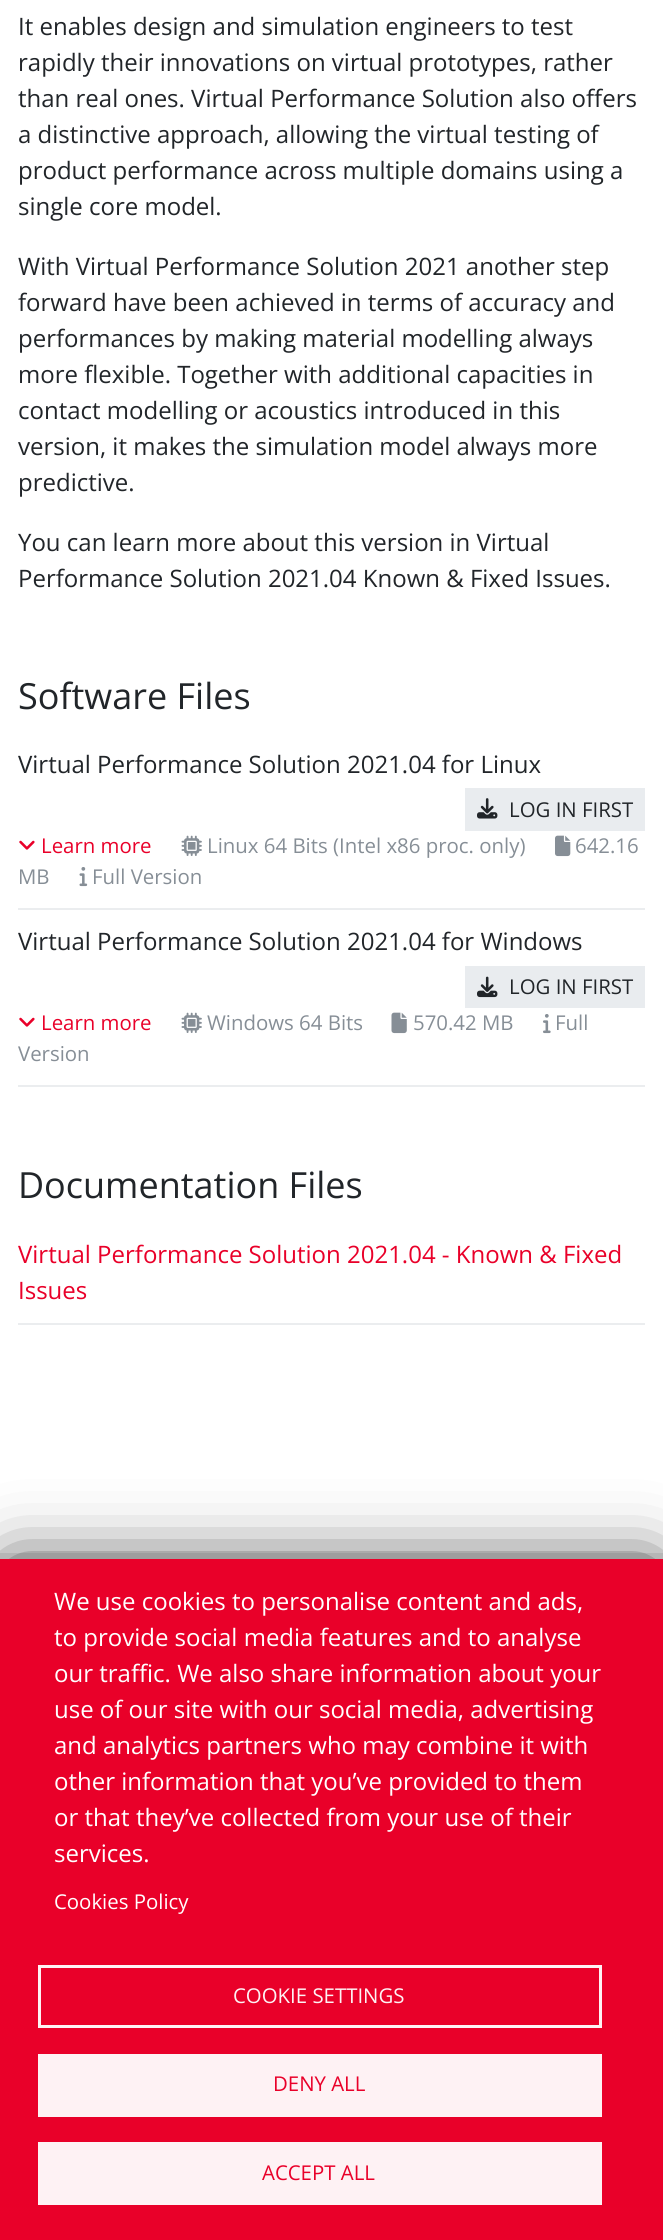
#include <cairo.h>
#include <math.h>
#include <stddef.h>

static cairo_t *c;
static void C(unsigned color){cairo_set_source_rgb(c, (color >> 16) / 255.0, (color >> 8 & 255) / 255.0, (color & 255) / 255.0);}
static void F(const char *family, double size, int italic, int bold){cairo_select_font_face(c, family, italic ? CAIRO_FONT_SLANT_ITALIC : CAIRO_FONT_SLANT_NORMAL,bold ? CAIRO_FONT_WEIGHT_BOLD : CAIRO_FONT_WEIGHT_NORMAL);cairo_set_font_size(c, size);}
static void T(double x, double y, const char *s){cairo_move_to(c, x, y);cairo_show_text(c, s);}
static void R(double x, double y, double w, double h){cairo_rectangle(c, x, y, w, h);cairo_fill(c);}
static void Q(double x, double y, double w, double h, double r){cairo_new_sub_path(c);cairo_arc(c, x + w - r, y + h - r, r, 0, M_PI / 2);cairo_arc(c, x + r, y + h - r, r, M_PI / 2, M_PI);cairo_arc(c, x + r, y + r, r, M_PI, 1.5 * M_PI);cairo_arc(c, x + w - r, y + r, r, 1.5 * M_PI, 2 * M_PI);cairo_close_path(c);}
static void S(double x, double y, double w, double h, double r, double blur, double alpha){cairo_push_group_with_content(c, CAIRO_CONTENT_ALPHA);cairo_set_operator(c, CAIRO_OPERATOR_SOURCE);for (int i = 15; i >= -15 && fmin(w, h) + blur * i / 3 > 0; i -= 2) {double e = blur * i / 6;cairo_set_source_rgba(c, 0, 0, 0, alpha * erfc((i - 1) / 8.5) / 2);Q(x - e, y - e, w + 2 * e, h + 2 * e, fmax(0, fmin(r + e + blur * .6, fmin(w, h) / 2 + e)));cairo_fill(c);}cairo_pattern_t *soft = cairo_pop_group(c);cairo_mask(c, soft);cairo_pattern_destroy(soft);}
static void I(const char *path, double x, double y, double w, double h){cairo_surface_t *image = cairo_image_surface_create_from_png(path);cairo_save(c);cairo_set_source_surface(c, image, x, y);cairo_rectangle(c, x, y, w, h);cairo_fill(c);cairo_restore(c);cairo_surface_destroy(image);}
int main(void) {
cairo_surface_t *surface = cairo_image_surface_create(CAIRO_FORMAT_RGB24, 663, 2240);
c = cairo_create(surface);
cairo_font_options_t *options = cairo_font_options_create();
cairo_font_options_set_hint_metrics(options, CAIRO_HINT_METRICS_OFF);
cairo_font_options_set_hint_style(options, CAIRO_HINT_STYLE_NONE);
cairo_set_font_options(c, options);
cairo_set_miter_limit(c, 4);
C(0xffffff);
cairo_paint(c);
F("Open Sans",24,0,0);
C(0x212529);
T(18,35,"It enables design and simulation engineers to test");
T(18,71,"rapidly their innovations on virtual prototypes, rather");
T(18,107,"than real ones. Virtual Performance Solution also offers");
T(18,143,"a distinctive approach, allowing the virtual testing of");
T(18,179,"product performance across multiple domains using a");
T(18,215,"single core model.");
T(18,275,"With Virtual Performance Solution 2021 another step");
T(18,311,"forward have been achieved in terms of accuracy and");
T(18,347,"performances by making material modelling always");
T(18,383,"more flexible. Together with additional capacities in");
T(18,419,"contact modelling or acoustics introduced in this");
T(18,455,"version, it makes the simulation model always more");
T(18,491,"predictive.");
T(18,551,"You can learn more about this version in Virtual");
T(18,587,"Performance Solution 2021.04 Known & Fixed Issues.");
F("Open Sans",36,0,0);
T(18,709,"Software Files");
F("Open Sans",24,0,0);
T(18,773,"Virtual Performance Solution 2021.04 for Linux");
C(0xe9ecef);
R(465,788,180,43);
I("1.png",477,798,21,21);
F("Open Sans",20.4,0,0);
C(0x212529);
T(509,817,"LOG IN FIRST");
I("2.png",181,835,21,21);
C(0x868e96);
T(207,853,"Linux 64 Bits (Intel x86 proc. only)");
I("3.png",555,835,16,22);
T(575,853,"642.16");
T(18,884,"MB");
I("4.png",19,840,16,10);
C(0xe90029);
T(41,853,"Learn more");
I("5.png",79,867,9,20);
C(0x868e96);
T(92,884,"Full Version");
C(0xebedef);
R(18,908,627,2);
F("Open Sans",24,0,0);
C(0x212529);
T(18,950,"Virtual Performance Solution 2021.04 for Windows");
C(0xe9ecef);
R(465,966,180,42);
I("6.png",477,976,21,22);
F("Open Sans",20.4,0,0);
C(0x212529);
T(509,994,"LOG IN FIRST");
I("7.png",543,1014,8,20);
C(0x868e96);
T(555,1030,"Full");
T(18,1061,"Version");
I("4.png",19,1017,16,10);
C(0xe90029);
T(41,1030,"Learn more");
I("2.png",181,1012,21,21);
C(0x868e96);
T(207,1030,"Windows 64 Bits");
I("8.png",391,1012,16,22);
T(413,1030,"570.42 MB");
C(0xebedef);
R(18,1085,627,2);
F("Open Sans",36,0,0);
C(0x212529);
T(18,1198,"Documentation Files");
F("Open Sans",24,0,0);
C(0xe90029);
T(18,1263,"Virtual Performance Solution 2021.04 - Known & Fixed");
T(18,1299,"Issues");
C(0xebedef);
R(18,1323,627,2);
C(0xebebeb);
R(0,1553,663,6);
C(0x000000);
S(11,1569,642,662,0,36,.89);
C(0xe90029);
R(0,1559,663,681);
C(0xffffff);
T(54,1610,"We use cookies to personalise content and ads,");
T(54,1646,"to provide social media features and to analyse");
T(54,1682,"our traffic. We also share information about your");
T(54,1718,"use of our site with our social media, advertising");
T(54,1754,"and analytics partners who may combine it with");
T(54,1790,"other information that you’ve provided to them");
T(54,1826,"or that they’ve collected from your use of their");
T(54,1862,"services.");
F("Open Sans",20.4,0,0);
T(54,1909,"Cookies Policy");
cairo_rectangle(c,39.5,1966.5,561,60);
C(0xfef2f4);
cairo_set_line_width(c,3);
cairo_stroke(c);
T(233,2003,"COOKIE SETTINGS");
R(38,2054,564,63);
C(0xe90029);
T(273,2091,"DENY ALL");
C(0xfef2f4);
R(38,2142,564,63);
C(0xe90029);
T(262,2180,"ACCEPT ALL");
cairo_surface_write_to_png(surface, "o.png");
cairo_font_options_destroy(options);
cairo_destroy(c);
cairo_surface_destroy(surface);
return 0;
}
